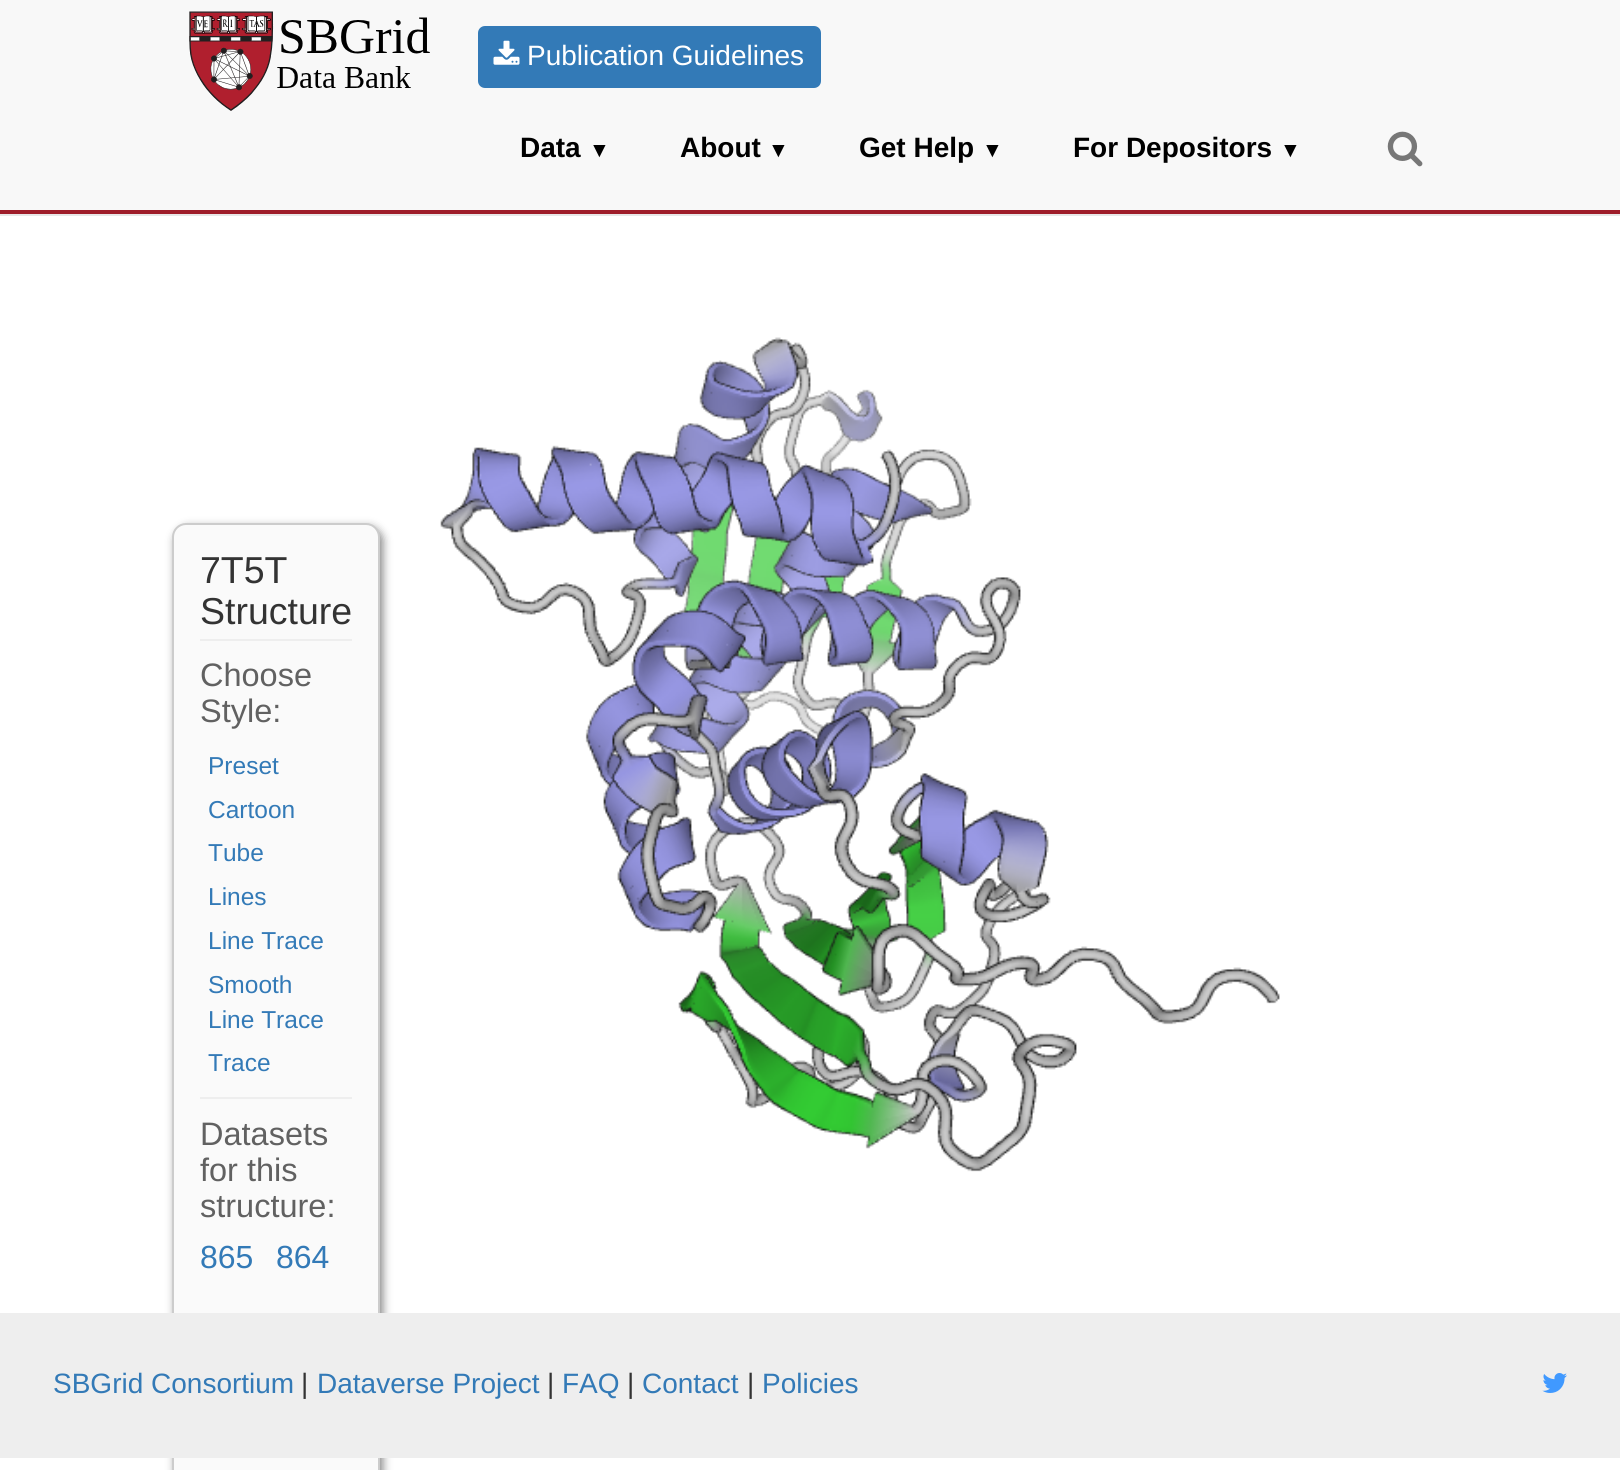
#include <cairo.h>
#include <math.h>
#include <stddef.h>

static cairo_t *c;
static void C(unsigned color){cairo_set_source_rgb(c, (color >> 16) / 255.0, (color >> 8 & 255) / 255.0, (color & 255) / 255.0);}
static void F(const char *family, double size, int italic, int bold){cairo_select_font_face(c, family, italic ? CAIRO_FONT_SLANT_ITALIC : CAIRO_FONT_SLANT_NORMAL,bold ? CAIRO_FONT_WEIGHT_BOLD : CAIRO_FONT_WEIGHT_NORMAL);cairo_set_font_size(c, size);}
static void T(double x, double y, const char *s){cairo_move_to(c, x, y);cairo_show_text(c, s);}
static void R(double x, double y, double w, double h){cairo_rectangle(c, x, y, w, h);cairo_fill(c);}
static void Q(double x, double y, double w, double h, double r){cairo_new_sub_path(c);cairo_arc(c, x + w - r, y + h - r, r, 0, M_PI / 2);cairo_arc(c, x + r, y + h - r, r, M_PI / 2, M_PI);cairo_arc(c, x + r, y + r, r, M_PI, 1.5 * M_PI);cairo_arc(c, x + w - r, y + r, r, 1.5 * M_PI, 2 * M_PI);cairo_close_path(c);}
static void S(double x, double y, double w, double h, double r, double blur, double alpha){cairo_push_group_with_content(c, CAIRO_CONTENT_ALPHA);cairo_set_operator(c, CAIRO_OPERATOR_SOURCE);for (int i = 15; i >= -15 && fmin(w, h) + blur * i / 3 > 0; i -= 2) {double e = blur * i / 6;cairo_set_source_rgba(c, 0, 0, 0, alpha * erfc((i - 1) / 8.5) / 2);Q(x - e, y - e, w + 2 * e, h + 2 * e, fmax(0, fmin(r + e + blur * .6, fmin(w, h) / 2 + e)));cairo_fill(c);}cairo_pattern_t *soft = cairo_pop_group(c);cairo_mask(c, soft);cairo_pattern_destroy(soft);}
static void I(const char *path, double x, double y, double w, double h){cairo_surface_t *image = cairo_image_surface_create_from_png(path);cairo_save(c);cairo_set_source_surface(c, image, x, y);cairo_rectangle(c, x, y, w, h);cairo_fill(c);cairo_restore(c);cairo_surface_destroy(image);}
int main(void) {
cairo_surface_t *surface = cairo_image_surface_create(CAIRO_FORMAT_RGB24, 1620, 1470);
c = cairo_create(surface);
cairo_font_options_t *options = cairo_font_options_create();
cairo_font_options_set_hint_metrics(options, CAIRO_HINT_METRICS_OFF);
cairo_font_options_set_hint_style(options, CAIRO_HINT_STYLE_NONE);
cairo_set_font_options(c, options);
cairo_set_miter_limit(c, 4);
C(0xffffff);
cairo_paint(c);
C(0xf8f8f8);
R(0,0,1620,210);
C(0xe7e7e7);
R(0,214,1620,2);
I("1.png",189,11,241,100);
C(0x337ab7);
Q(478,26,343,62,7);
cairo_fill(c);
I("2.png",493,40,27,25);
F("Liberation Sans",28,0,0);
C(0xffffff);
T(527,65,"Publication Guidelines");
F("Liberation Sans",28,0,1);
C(0x000000);
T(520,157,"Data");
F("Liberation Sans",21,0,1);
T(589,157,"▼");
F("Liberation Sans",28,0,1);
T(680,157,"About");
F("Liberation Sans",21,0,1);
T(768,157,"▼");
F("Liberation Sans",28,0,1);
T(859,157,"Get Help");
F("Liberation Sans",21,0,1);
T(982,157,"▼");
F("Liberation Sans",28,0,1);
T(1073,157,"For Depositors");
F("Liberation Sans",21,0,1);
T(1280,157,"▼");
I("3.png",1387,131,36,36);
C(0x9e1d2a);
R(0,210,1620,4);
I("4.png",193,216,1235,956);
C(0x888888);
S(175,527,208,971,14,4.5,1);
C(0xfafafa);
Q(173,524,206,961,13);
cairo_fill_preserve(c);
C(0xcccccc);
cairo_stroke(c);
F("Liberation Sans",37.5,0,0);
C(0x333333);
T(200,583,"7T5T");
T(200,624,"Structure");
C(0xeeeeee);
R(200,639,152,2);
F("Liberation Sans",32.5,0,0);
C(0x616161);
T(200,686,"Choose");
T(200,722,"Style:");
F("Liberation Sans",24.5,0,0);
C(0x337ab7);
T(208,774,"Preset");
T(208,818,"Cartoon");
T(208,861,"Tube");
T(208,905,"Lines");
T(208,949,"Line Trace");
T(208,993,"Smooth");
T(208,1028,"Line Trace");
T(208,1071,"Trace");
C(0xeeeeee);
R(200,1097,152,2);
F("Liberation Sans",32.5,0,0);
C(0x616161);
T(200,1145,"Datasets");
T(200,1181,"for this");
T(200,1217,"structure:");
F("Liberation Sans",32,0,0);
C(0x337ab7);
T(200,1268,"865");
T(276,1268,"864");
C(0xeeeeee);
R(0,1313,1620,145);
F("Liberation Sans",28,0,0);
C(0x337ab7);
T(53,1393,"SBGrid Consortium");
C(0x333333);
T(301,1393,"|");
C(0x337ab7);
T(317,1393,"Dataverse Project");
C(0x333333);
T(547,1393,"|");
C(0x337ab7);
T(562,1393,"FAQ");
C(0x333333);
T(627,1393,"|");
C(0x337ab7);
T(642,1393,"Contact");
C(0x333333);
T(747,1393,"|");
C(0x337ab7);
T(762,1393,"Policies");
I("5.png",1542,1373,25,20);
cairo_surface_write_to_png(surface, "o.png");
cairo_font_options_destroy(options);
cairo_destroy(c);
cairo_surface_destroy(surface);
return 0;
}
